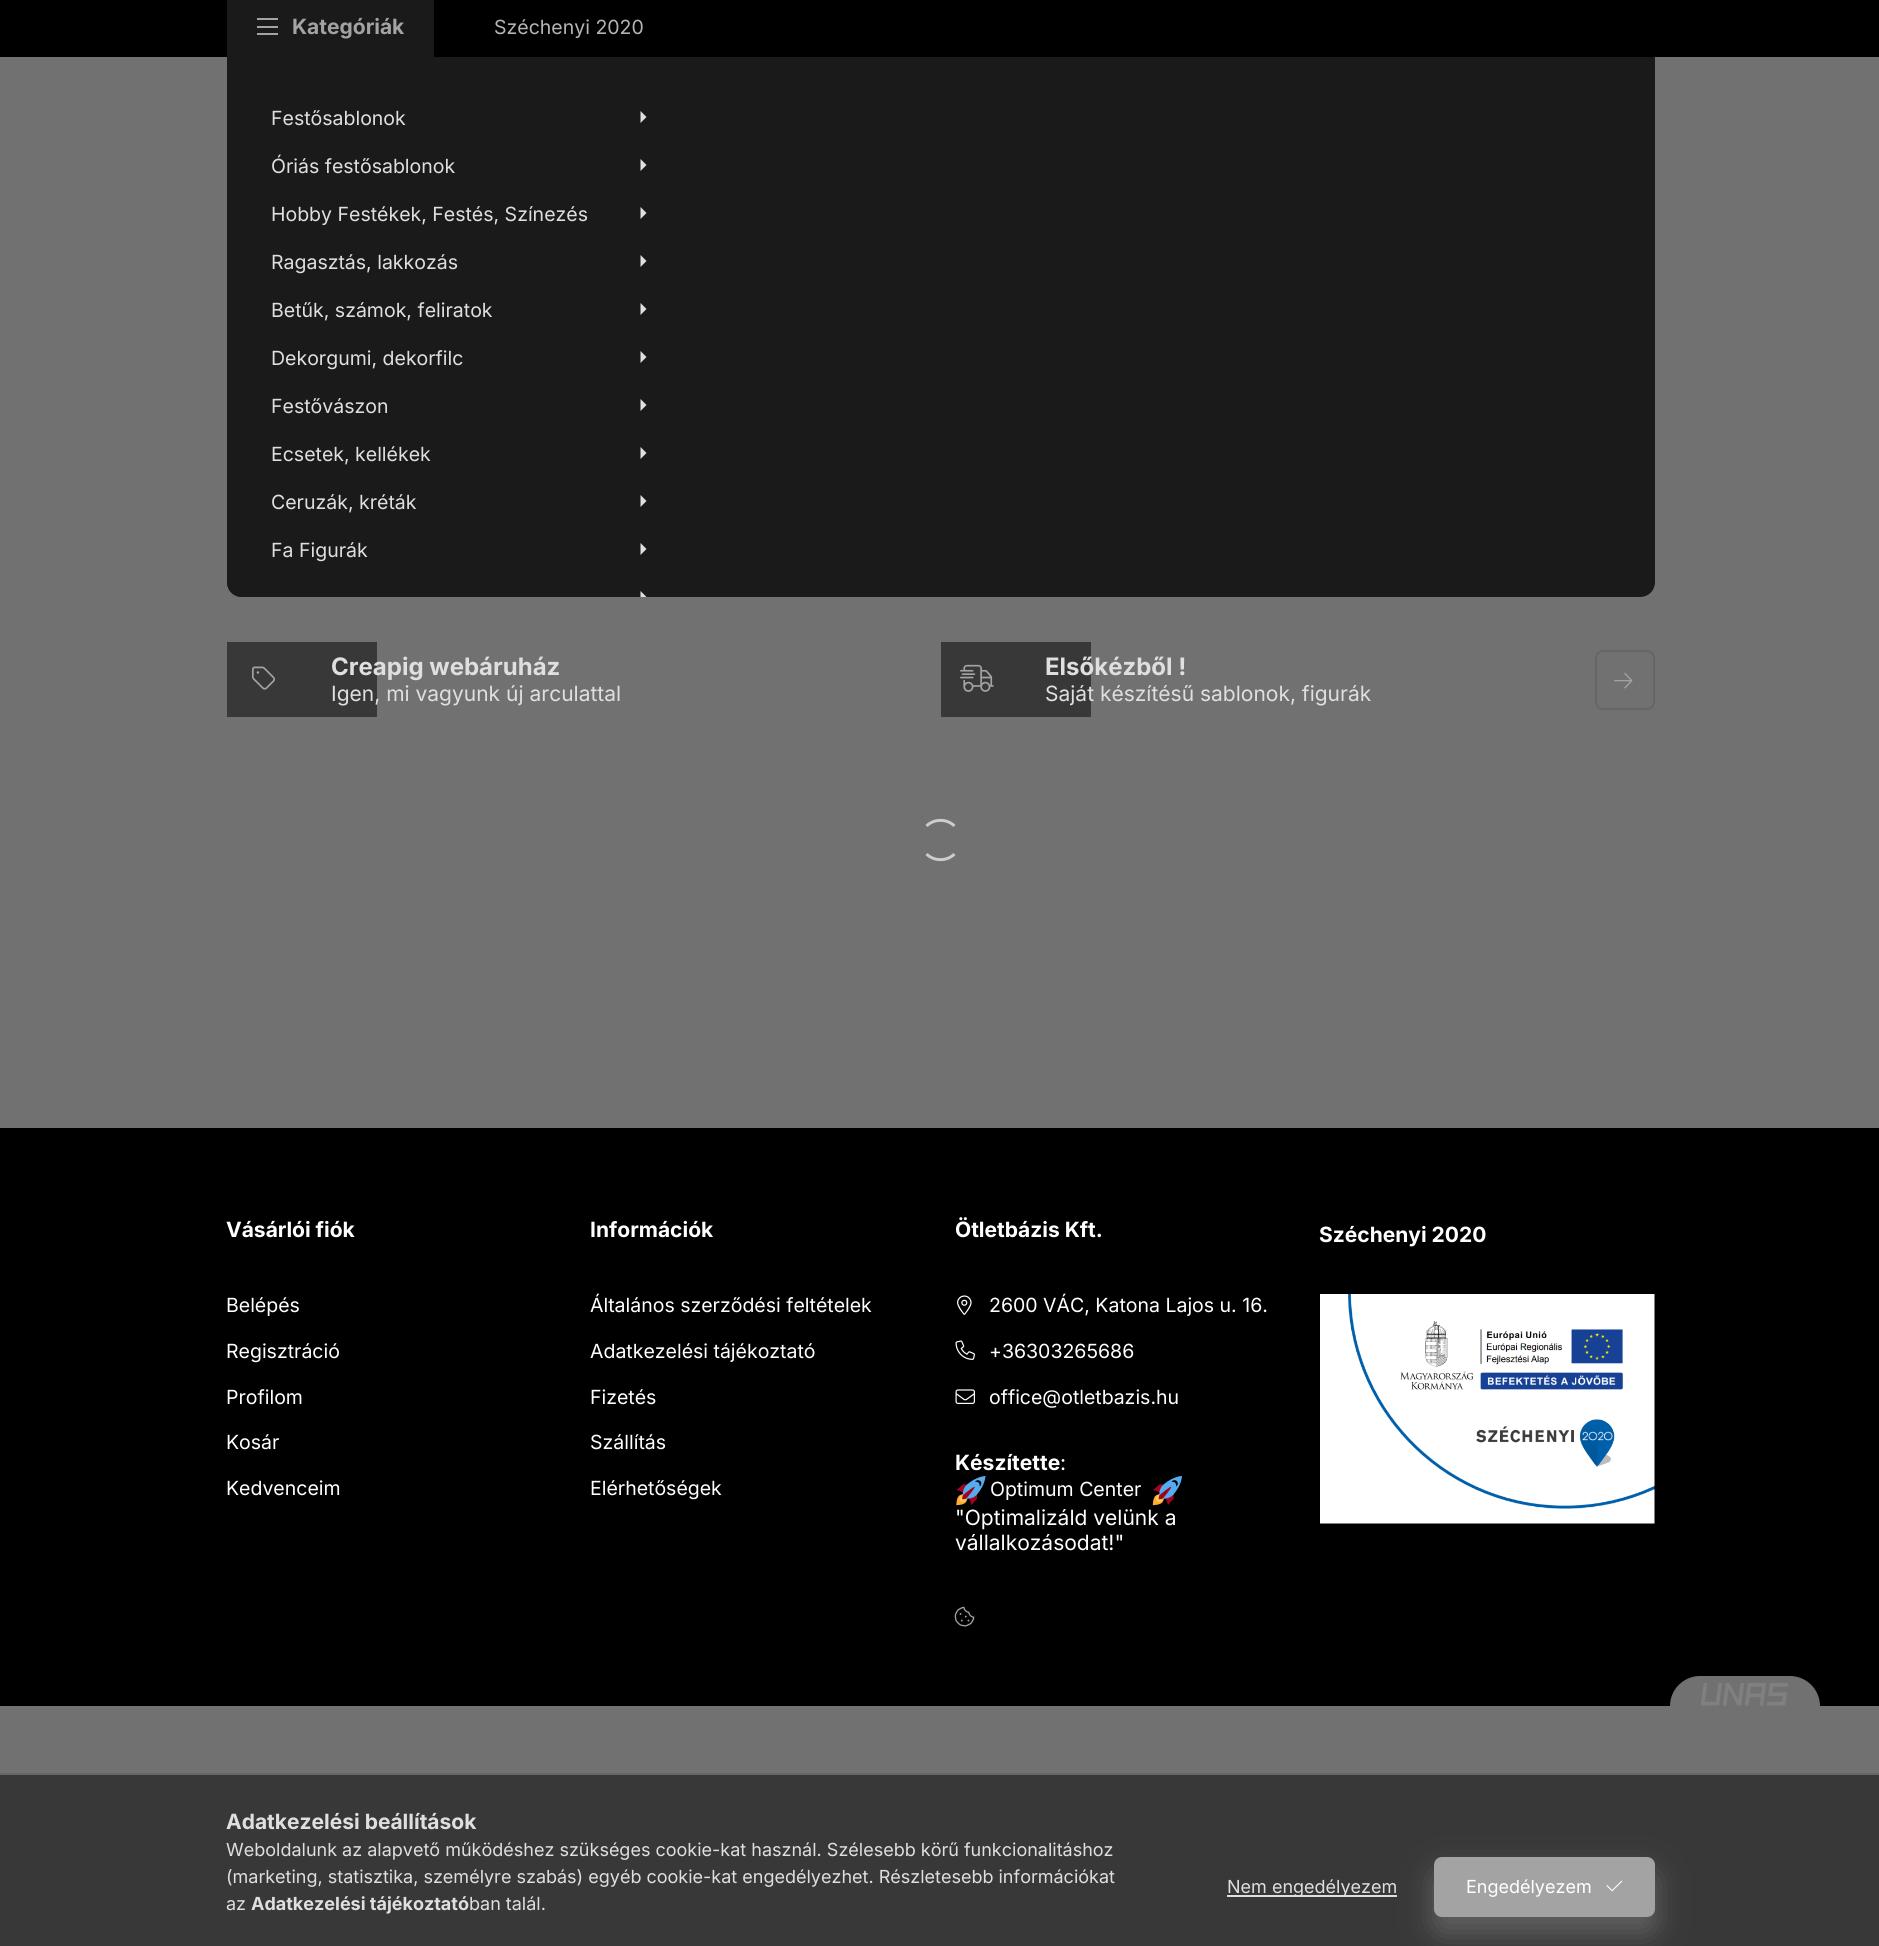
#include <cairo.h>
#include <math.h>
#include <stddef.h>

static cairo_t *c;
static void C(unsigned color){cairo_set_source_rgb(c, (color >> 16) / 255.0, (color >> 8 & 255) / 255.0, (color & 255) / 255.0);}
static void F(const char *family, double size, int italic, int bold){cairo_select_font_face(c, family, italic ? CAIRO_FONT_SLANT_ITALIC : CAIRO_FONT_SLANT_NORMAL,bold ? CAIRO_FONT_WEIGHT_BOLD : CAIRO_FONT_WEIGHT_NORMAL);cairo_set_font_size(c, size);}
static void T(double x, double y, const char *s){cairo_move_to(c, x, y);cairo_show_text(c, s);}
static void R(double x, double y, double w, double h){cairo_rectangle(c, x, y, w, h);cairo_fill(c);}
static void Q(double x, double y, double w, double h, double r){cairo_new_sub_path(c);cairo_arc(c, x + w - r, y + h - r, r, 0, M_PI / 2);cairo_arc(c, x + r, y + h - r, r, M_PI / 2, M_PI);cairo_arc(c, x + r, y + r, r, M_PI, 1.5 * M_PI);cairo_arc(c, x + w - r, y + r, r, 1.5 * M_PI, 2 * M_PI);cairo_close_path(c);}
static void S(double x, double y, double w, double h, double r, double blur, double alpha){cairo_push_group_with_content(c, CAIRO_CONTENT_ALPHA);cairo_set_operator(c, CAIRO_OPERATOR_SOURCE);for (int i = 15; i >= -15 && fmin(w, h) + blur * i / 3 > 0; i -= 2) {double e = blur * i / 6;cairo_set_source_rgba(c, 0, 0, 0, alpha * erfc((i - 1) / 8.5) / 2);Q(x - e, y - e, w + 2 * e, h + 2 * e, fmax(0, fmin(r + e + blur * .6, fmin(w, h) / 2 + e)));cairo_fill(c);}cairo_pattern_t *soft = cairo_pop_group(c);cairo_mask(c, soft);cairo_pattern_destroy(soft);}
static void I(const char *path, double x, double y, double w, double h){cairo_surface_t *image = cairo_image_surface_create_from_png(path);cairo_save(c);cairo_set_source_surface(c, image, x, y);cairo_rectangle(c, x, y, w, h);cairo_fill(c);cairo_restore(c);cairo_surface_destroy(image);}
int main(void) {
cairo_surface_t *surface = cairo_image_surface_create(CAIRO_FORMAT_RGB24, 1879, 1946);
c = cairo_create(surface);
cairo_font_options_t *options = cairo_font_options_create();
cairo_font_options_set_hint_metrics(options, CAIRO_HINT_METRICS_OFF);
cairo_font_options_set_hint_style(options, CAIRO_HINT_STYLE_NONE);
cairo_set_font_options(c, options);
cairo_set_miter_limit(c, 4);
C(0x717171);
cairo_paint(c);
C(0x000000);
R(0,0,1879,57);
C(0x1a1a1a);
R(227,0,207,57);
C(0xa3a3a3);
R(257,18,21,2);
R(257,26,21,2);
R(257,33,21,2);
F("Inter",21,0,1);
T(292,34,"Kategóriák");
C(0x1a1a1a);
cairo_new_path(c);
cairo_move_to(c,227,57);
cairo_line_to(c,1655,57);
cairo_line_to(c,1655,582);
cairo_curve_to(c,1655,590.5,1648.5,597,1640,597);
cairo_line_to(c,242,597);
cairo_curve_to(c,233.5,597,227,590.5,227,582);
cairo_close_path(c);
cairo_fill(c);
cairo_new_path(c);
cairo_move_to(c,227,57);
cairo_line_to(c,707,57);
cairo_line_to(c,707,597);
cairo_line_to(c,242,597);
cairo_curve_to(c,233.5,597,227,590.5,227,582);
cairo_close_path(c);
cairo_fill(c);
F("Inter",19.5,0,0);
C(0xdfdfdf);
T(271,125,"Festősablonok");
cairo_new_path(c);
cairo_move_to(c,640.5,123);
cairo_line_to(c,640.5,111);
cairo_line_to(c,646.5,117);
cairo_close_path(c);
cairo_move_to(c,640.5,171);
cairo_line_to(c,640.5,159);
cairo_line_to(c,646.5,165);
cairo_close_path(c);
cairo_fill(c);
T(271,173,"Óriás festősablonok");
T(271,221,"Hobby Festékek, Festés, Színezés");
cairo_new_path(c);
cairo_move_to(c,640.5,219);
cairo_line_to(c,640.5,207);
cairo_line_to(c,646.5,213);
cairo_close_path(c);
cairo_move_to(c,640.5,267);
cairo_line_to(c,640.5,255);
cairo_line_to(c,646.5,261);
cairo_close_path(c);
cairo_fill(c);
T(271,269,"Ragasztás, lakkozás");
T(271,317,"Betűk, számok, feliratok");
cairo_new_path(c);
cairo_move_to(c,640.5,315);
cairo_line_to(c,640.5,303);
cairo_line_to(c,646.5,309);
cairo_close_path(c);
cairo_move_to(c,640.5,363);
cairo_line_to(c,640.5,351);
cairo_line_to(c,646.5,357);
cairo_close_path(c);
cairo_fill(c);
T(271,365,"Dekorgumi, dekorfilc");
T(271,413,"Festővászon");
cairo_new_path(c);
cairo_move_to(c,640.5,411);
cairo_line_to(c,640.5,399);
cairo_line_to(c,646.5,405);
cairo_close_path(c);
cairo_move_to(c,640.5,459);
cairo_line_to(c,640.5,447);
cairo_line_to(c,646.5,453);
cairo_close_path(c);
cairo_fill(c);
T(271,461,"Ecsetek, kellékek");
T(271,509,"Ceruzák, kréták");
cairo_new_path(c);
cairo_move_to(c,640.5,507);
cairo_line_to(c,640.5,495);
cairo_line_to(c,646.5,501);
cairo_close_path(c);
cairo_move_to(c,640.5,555);
cairo_line_to(c,640.5,543);
cairo_line_to(c,646.5,549);
cairo_close_path(c);
cairo_fill(c);
T(271,557,"Fa Figurák");
cairo_new_path(c);
cairo_move_to(c,646.5,597);
cairo_line_to(c,640.5,597);
cairo_line_to(c,640.5,591);
cairo_close_path(c);
cairo_fill(c);
C(0xb5b5b5);
T(494,34,"Széchenyi 2020");
C(0x383838);
R(227,642,150,75);
I("1.png",252,666,23,24);
F("Inter",24,0,1);
C(0xdfdfdf);
T(331,675,"Creapig webáruház");
F("Inter",21,0,0);
T(331,701,"Igen, mi vagyunk új arculattal");
C(0x383838);
R(941,642,150,75);
I("2.png",960,664,34,28);
F("Inter",24,0,1);
C(0xdfdfdf);
T(1045,675,"Elsőkézből !");
F("Inter",21,0,0);
T(1045,701,"Saját készítésű sablonok, figurák");
Q(1596,651,58,58,7);
C(0x666666);
cairo_stroke(c);
I("3.png",1614,672,19,17);
cairo_new_path(c);
cairo_move_to(c,926.5,826);
cairo_curve_to(c,934,818.5,947,818.5,954.5,826);
cairo_move_to(c,954.5,854);
cairo_curve_to(c,947,861.5,934,861.5,926.5,854);
C(0xcccccc);
cairo_set_line_width(c,3);
cairo_stroke(c);
C(0x000000);
R(0,1128,1879,578);
F("Inter",21,0,1);
C(0xffffff);
T(226,1237,"Vásárlói fiók");
F("Inter",19.5,0,0);
T(226,1312,"Belépés");
T(226,1358,"Regisztráció");
T(226,1404,"Profilom");
T(226,1449,"Kosár");
T(226,1495,"Kedvenceim");
F("Inter",21,0,1);
T(590,1237,"Információk");
F("Inter",19.5,0,0);
T(590,1312,"Általános szerződési feltételek");
T(590,1358,"Adatkezelési tájékoztató");
T(590,1404,"Fizetés");
T(590,1449,"Szállítás");
T(590,1495,"Elérhetőségek");
F("Inter",21,0,1);
T(955,1237,"Ötletbázis Kft.");
I("4.png",957,1295,15,20);
F("Inter",19.5,0,0);
T(989,1312,"2600 VÁC, Katona Lajos u. 16.");
I("5.png",955,1340,20,20);
T(989,1358,"+36303265686");
I("6.png",955,1389,20,15);
T(989,1404,"office@otletbazis.hu");
F("Inter",21,0,1);
T(955,1470,"Készítette");
F("Inter",21,0,0);
T(1060,1470,":");
I("7.png",956,1476,30,30);
F("Inter",19.5,0,0);
T(990,1496,"Optimum Center");
I("8.png",1152,1476,30,30);
F("Inter",21,0,0);
T(955,1525,"\"Optimalizáld velünk a");
T(955,1550,"vállalkozásodat!\"");
I("9.png",954,1606,21,21);
F("Inter",21,0,1);
T(1319,1242,"Széchenyi 2020");
I("10.png",1320,1294,335,230);
C(0x717171);
cairo_new_path(c);
cairo_move_to(c,1700,1676);
cairo_line_to(c,1790,1676);
cairo_curve_to(c,1806.5,1676,1820,1689.5,1820,1706);
cairo_line_to(c,1670,1706);
cairo_curve_to(c,1670,1689.5,1683.5,1676,1700,1676);
cairo_close_path(c);
cairo_fill(c);
I("11.png",1701,1683,87,23);
C(0x383838);
R(0,1775,1879,171);
C(0x666666);
R(0,1773,1879,2);
C(0xdfdfdf);
T(226,1829,"Adatkezelési beállítások");
F("Inter",18,0,0);
T(226,1856,"Weboldalunk az alapvető működéshez szükséges cookie-kat használ. Szélesebb körű funkcionalitáshoz");
T(226,1883,"(marketing, statisztika, személyre szabás) egyéb cookie-kat engedélyezhet. Részletesebb információkat");
T(226,1910,"az");
F("Inter",18,0,1);
T(251,1910,"Adatkezelési tájékoztató");
F("Inter",18,0,0);
T(469,1910,"ban talál.");
R(1227,1895,170,2);
T(1227,1893,"Nem engedélyezem");
C(0xa3a3a3);
S(1434,1872,221,60,8,15,.4);
C(0xa3a3a3);
Q(1435,1858,219,58,7);
cairo_fill_preserve(c);
cairo_set_line_width(c,2);
cairo_stroke(c);
C(0xffffff);
T(1466,1893,"Engedélyezem");
I("12.png",1606,1880,17,12);
cairo_surface_write_to_png(surface, "o.png");
cairo_font_options_destroy(options);
cairo_destroy(c);
cairo_surface_destroy(surface);
return 0;
}
